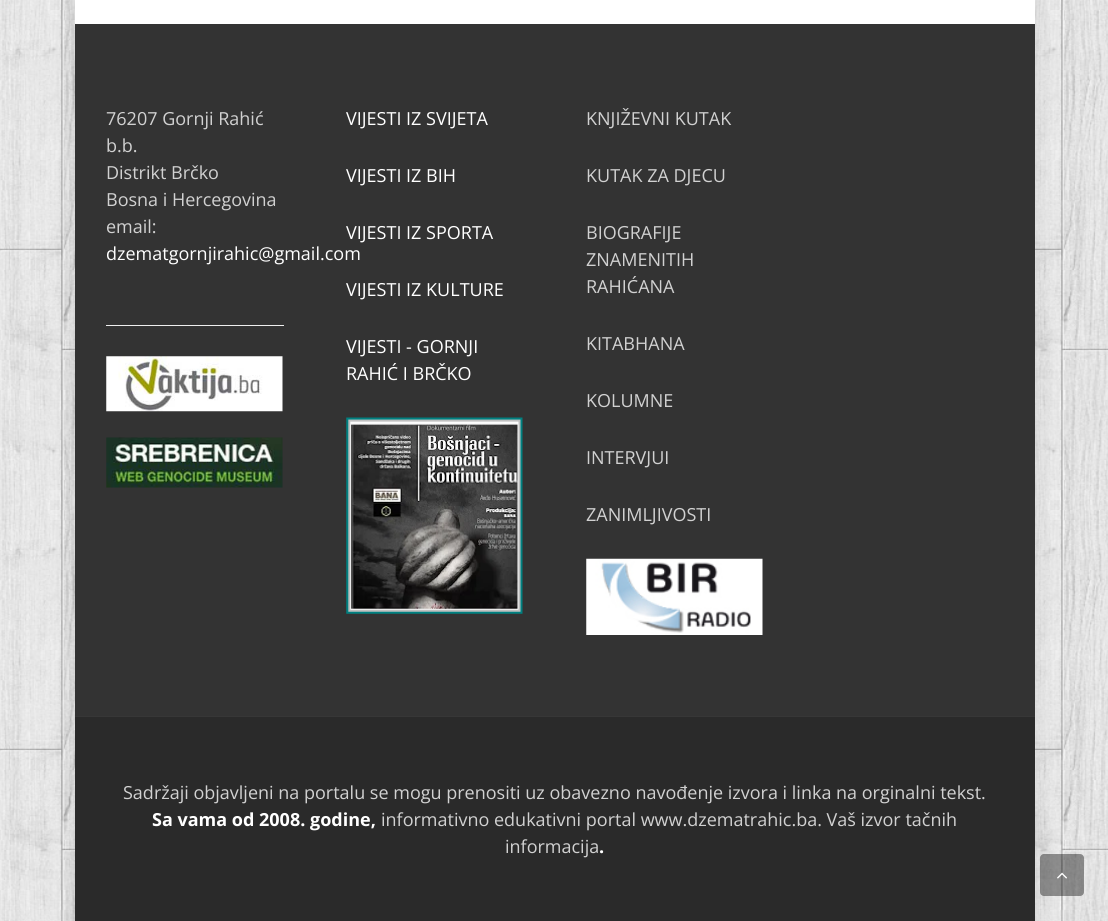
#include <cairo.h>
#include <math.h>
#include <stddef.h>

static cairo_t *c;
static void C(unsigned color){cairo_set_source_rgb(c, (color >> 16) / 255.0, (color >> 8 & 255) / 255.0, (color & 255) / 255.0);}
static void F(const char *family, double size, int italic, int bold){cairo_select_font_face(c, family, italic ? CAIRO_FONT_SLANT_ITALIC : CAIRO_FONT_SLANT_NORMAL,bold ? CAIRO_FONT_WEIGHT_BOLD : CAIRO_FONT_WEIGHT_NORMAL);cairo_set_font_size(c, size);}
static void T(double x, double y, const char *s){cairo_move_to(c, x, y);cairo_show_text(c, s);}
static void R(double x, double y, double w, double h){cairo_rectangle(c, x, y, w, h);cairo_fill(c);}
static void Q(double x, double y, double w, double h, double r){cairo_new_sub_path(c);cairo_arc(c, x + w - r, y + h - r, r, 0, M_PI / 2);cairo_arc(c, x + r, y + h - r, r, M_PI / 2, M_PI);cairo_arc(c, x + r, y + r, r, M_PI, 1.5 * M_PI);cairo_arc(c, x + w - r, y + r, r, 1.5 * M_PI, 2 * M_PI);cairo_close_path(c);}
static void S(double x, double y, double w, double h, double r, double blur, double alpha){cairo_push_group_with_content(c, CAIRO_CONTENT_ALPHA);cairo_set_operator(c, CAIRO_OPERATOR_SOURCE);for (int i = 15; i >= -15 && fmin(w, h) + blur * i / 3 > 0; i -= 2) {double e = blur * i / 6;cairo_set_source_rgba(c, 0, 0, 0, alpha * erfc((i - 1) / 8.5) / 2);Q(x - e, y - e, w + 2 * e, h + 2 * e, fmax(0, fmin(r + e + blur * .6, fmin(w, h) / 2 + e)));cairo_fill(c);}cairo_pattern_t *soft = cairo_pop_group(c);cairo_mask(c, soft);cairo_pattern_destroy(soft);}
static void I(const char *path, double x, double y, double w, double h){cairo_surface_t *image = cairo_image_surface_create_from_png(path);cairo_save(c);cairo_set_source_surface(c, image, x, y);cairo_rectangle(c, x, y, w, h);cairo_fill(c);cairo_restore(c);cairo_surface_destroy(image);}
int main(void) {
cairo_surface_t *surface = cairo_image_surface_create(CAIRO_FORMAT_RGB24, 1108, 921);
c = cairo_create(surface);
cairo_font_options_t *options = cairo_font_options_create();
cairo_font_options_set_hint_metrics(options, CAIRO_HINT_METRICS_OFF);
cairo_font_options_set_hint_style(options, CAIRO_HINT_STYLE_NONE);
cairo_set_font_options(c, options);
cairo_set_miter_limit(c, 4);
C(0xffffff);
cairo_paint(c);
I("1.png",0,0,1108,921);
C(0x000000);
S(75,-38,960,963,0,12.5,.1);
C(0xffffff);
R(75,0,960,24);
C(0x333333);
R(75,24,960,692);
F("Open Sans",18,0,0);
C(0xd1d1d1);
T(106,125,"76207 Gornji Rahić");
T(106,152,"b.b.");
T(106,179,"Distrikt Brčko");
T(106,206,"Bosna i Hercegovina");
T(106,233,"email:");
C(0xffffff);
T(106,260,"dzematgornjirahic@gmail.com");
C(0xefefef);
R(106,325,178,1);
I("2.png",106,356,177,56);
I("3.png",106,437,177,51);
C(0xffffff);
T(346,125,"VIJESTI IZ SVIJETA");
T(346,182,"VIJESTI IZ BIH");
T(346,239,"VIJESTI IZ SPORTA");
T(346,296,"VIJESTI IZ KULTURE");
T(346,353,"VIJESTI - GORNJI");
T(346,380,"RAHIĆ I BRČKO");
I("4.png",346,417,177,197);
C(0xd1d1d1);
T(586,125,"KNJIŽEVNI KUTAK");
T(586,182,"KUTAK ZA DJECU");
T(586,239,"BIOGRAFIJE");
T(586,266,"ZNAMENITIH");
T(586,293,"RAHIĆANA");
T(586,350,"KITABHANA");
T(586,407,"KOLUMNE");
T(586,464,"INTERVJUI");
T(586,521,"ZANIMLJIVOSTI");
I("5.png",586,558,177,77);
C(0x2a2a2a);
R(75,717,960,204);
C(0x373737);
R(75,716,960,1);
C(0xd1d1d1);
T(123,799,"Sadržaji objavljeni na portalu se mogu prenositi uz obavezno navođenje izvora i linka na orginalni tekst.");
F("Open Sans",18,0,1);
C(0xffffff);
T(152,826,"Sa vama od 2008. godine,");
F("Open Sans",18,0,0);
C(0xd1d1d1);
T(381,826,"informativno edukativni portal www.dzematrahic.ba. Vaš izvor tačnih");
T(505,853,"informacija");
F("Open Sans",18,0,1);
C(0xffffff);
T(599,853,".");
cairo_set_source_rgba(c,0,0,0,0.4);
Q(1040,854,44,42,4);
cairo_fill(c);
I("6.png",1057,872,10,7);
cairo_surface_write_to_png(surface, "o.png");
cairo_font_options_destroy(options);
cairo_destroy(c);
cairo_surface_destroy(surface);
return 0;
}
